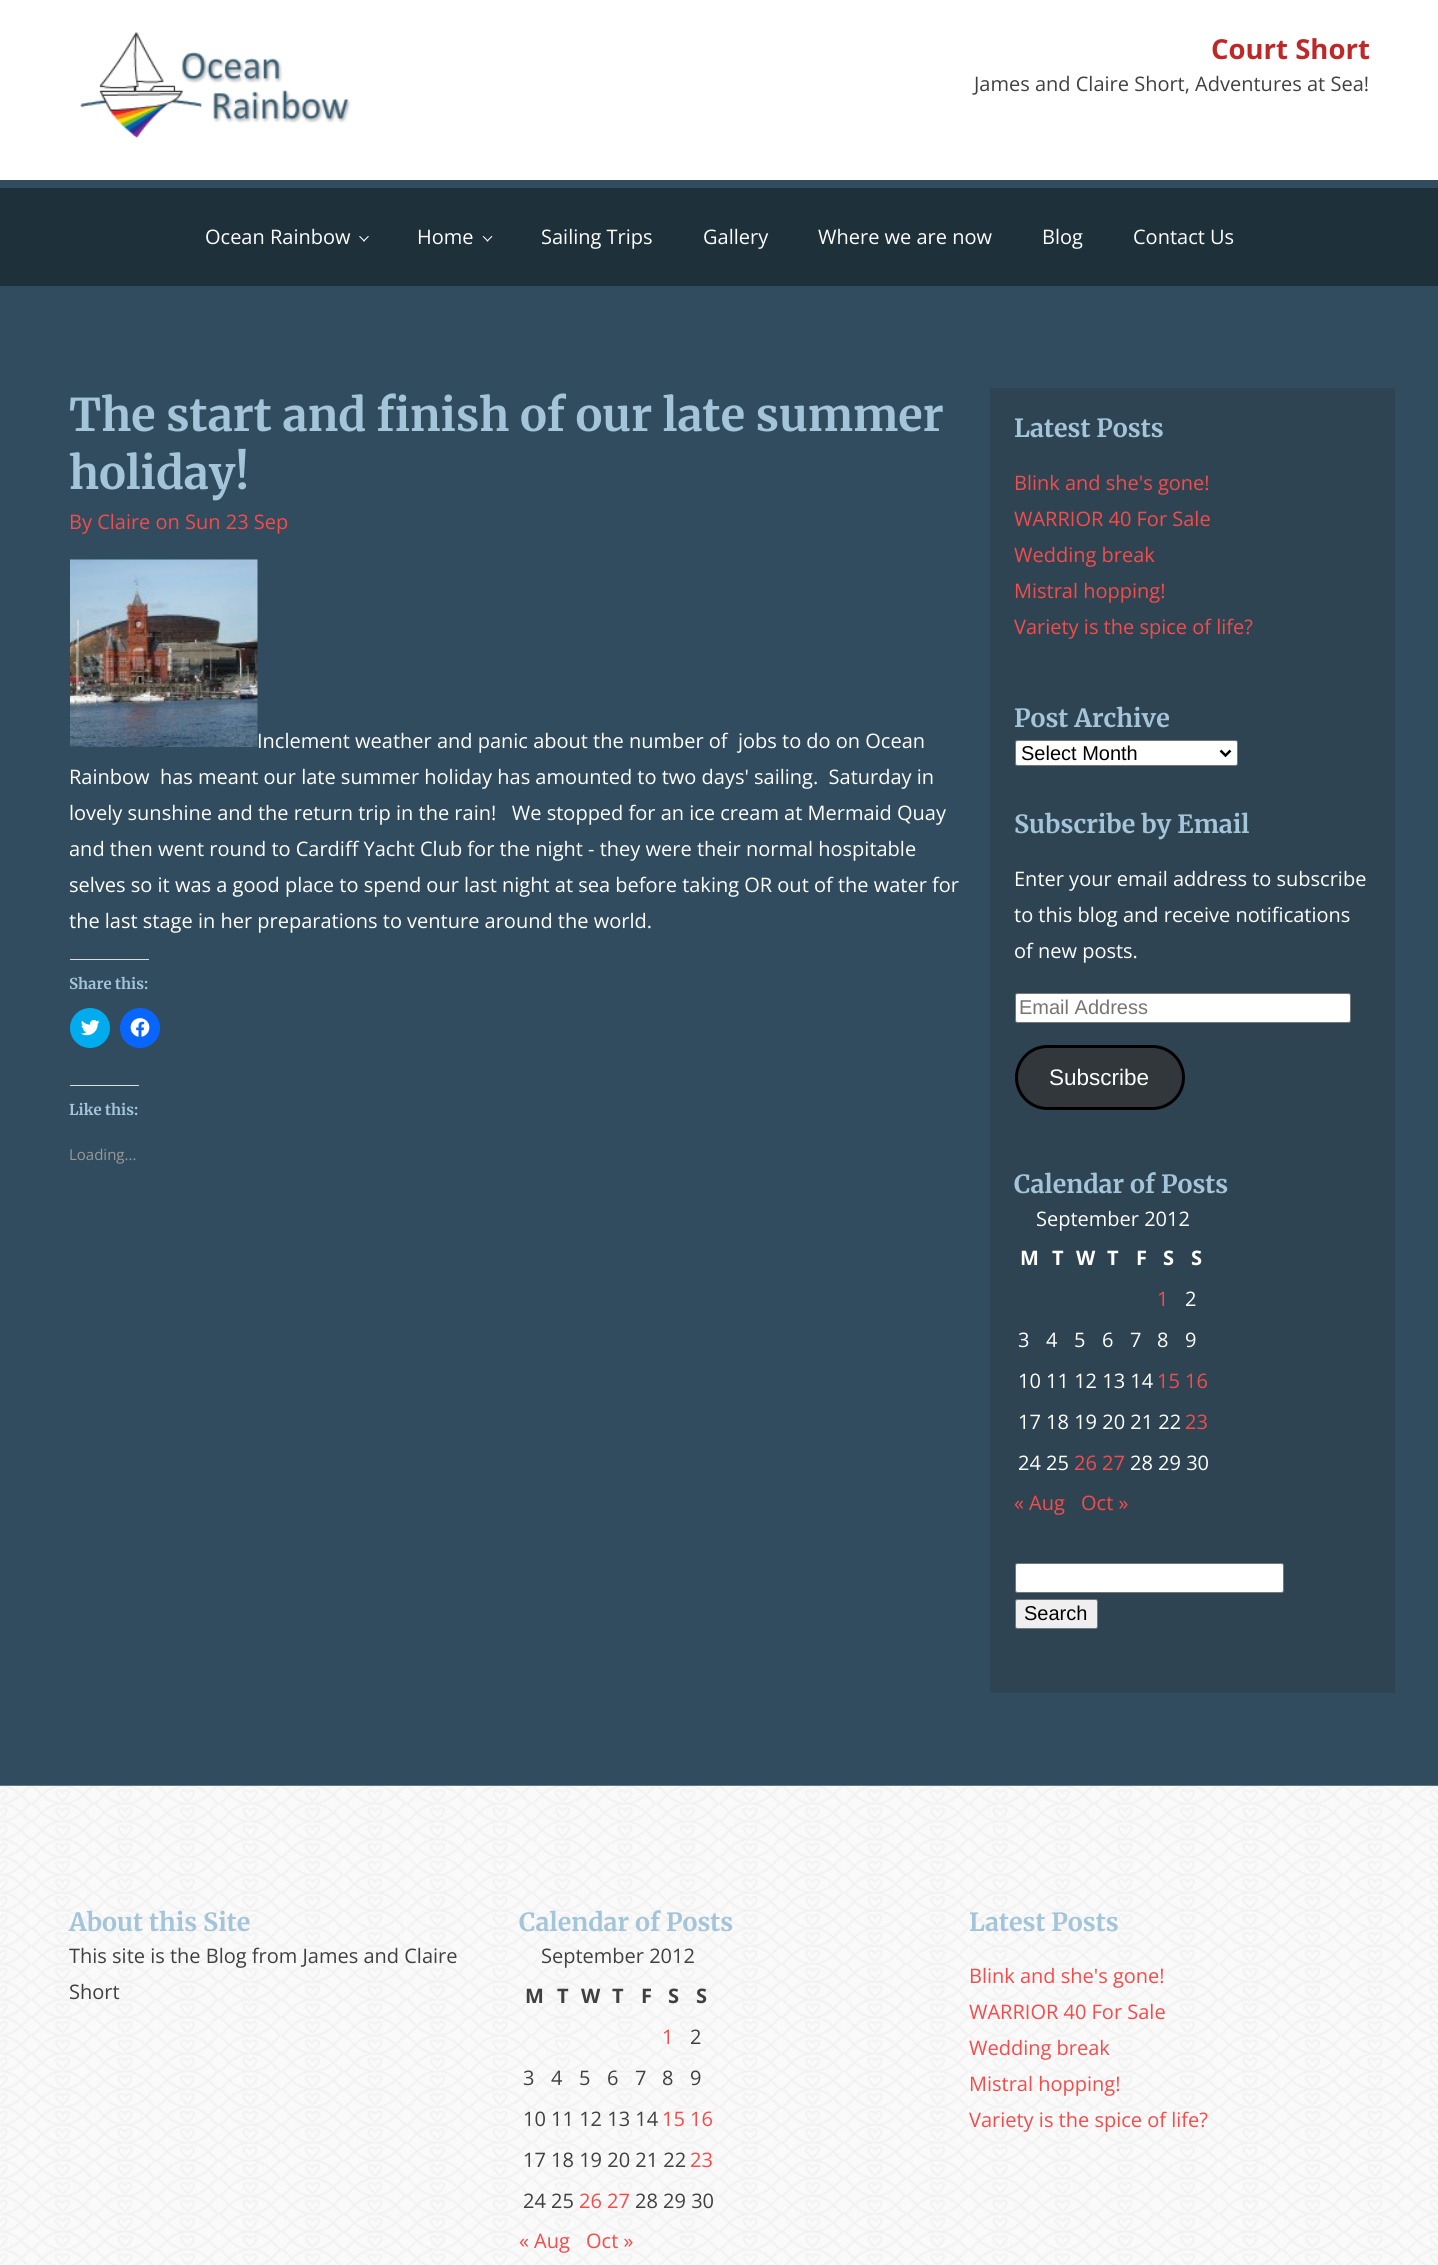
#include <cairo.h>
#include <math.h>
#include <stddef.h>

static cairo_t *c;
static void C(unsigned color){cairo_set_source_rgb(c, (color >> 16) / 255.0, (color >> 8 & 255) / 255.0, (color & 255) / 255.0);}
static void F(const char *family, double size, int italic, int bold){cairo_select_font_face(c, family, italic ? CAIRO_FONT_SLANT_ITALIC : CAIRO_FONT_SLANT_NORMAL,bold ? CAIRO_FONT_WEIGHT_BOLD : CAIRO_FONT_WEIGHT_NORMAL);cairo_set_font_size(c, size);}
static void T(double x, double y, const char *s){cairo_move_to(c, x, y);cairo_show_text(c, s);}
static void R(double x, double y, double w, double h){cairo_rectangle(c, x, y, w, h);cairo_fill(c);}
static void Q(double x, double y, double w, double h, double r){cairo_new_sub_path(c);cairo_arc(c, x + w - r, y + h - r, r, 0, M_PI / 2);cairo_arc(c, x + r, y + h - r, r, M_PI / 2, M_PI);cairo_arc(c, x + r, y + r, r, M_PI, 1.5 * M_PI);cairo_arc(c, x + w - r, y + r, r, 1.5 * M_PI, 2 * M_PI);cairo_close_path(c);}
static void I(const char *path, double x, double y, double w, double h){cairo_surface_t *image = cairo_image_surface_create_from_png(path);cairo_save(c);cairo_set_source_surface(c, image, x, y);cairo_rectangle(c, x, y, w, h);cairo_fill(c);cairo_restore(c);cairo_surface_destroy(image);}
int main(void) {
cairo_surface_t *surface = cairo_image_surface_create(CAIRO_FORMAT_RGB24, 1438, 2265);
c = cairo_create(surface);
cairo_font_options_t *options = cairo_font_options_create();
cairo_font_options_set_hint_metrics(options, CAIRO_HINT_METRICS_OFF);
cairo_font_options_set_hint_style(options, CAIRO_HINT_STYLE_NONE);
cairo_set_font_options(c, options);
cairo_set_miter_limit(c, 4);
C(0xffffff);
cairo_paint(c);
I("1.png",80,32,271,107);
F("Open Sans",27.5,0,1);
C(0xbf2828);
T(1211,59,"Court Short");
F("Open Sans",20,0,0);
C(0x404040);
T(974,91,"James and Claire Short, Adventures at Sea!");
C(0x1e303a);
R(0,188,1438,98);
C(0x304c5e);
R(0,180,1438,8);
R(0,286,1438,1500);
C(0xffffff);
T(205,244,"Ocean Rainbow");
cairo_new_path(c);
cairo_move_to(c,369,236.5);
cairo_line_to(c,364,241.5);
cairo_line_to(c,363,241);
cairo_line_to(c,368,236);
cairo_close_path(c);
cairo_fill(c);
cairo_new_path(c);
cairo_move_to(c,365,241);
cairo_line_to(c,364,241.5);
cairo_line_to(c,359,236.5);
cairo_line_to(c,360,236);
cairo_close_path(c);
cairo_fill(c);
T(417,244,"Home");
cairo_new_path(c);
cairo_move_to(c,492.5,236.5);
cairo_line_to(c,487.5,241.5);
cairo_line_to(c,486.5,241);
cairo_line_to(c,491.5,236);
cairo_close_path(c);
cairo_fill(c);
cairo_new_path(c);
cairo_move_to(c,488.5,241);
cairo_line_to(c,487.5,241.5);
cairo_line_to(c,482.5,236.5);
cairo_line_to(c,483.5,236);
cairo_close_path(c);
cairo_fill(c);
T(541,244,"Sailing Trips");
T(703,244,"Gallery");
T(818,244,"Where we are now");
T(1042,244,"Blog");
T(1133,244,"Contact Us");
F("Merriweather",45,0,1);
C(0xa3c4d9);
T(69,431,"The start and finish of our late summer");
T(69,489,"holiday!");
F("Open Sans",20,0,0);
C(0xf44b4b);
T(69,529,"By Claire on Sun 23 Sep");
I("2.png",70,559,188,188);
C(0xffffff);
T(257,748,"Inclement weather and panic about the number of  jobs to do on Ocean");
T(69,784,"Rainbow  has meant our late summer holiday has amounted to two days' sailing.  Saturday in");
T(69,820,"lovely sunshine and the return trip in the rain!   We stopped for an ice cream at Mermaid Quay");
T(69,856,"and then went round to Cardiff Yacht Club for the night - they were their normal hospitable");
T(69,892,"selves so it was a good place to spend our last night at sea before taking OR out of the water for");
T(69,928,"the last stage in her preparations to venture around the world.");
C(0xdcdcde);
R(70,959,79,1);
F("Merriweather",15,0,1);
C(0xa3c4d9);
T(69,989,"Share this:");
C(0x00acee);
cairo_new_path(c);
cairo_arc(c,90,1028,20,0,2 * M_PI);
cairo_fill(c);
I("3.png",81,1020,19,16);
C(0x0866ff);
cairo_arc(c,140,1028,20,0,2 * M_PI);
cairo_fill(c);
I("4.png",130,1018,20,19);
C(0xdcdcde);
R(70,1085,69,1);
C(0xa3c4d9);
T(69,1115,"Like this:");
F("Open Sans",15,0,0);
C(0x999999);
T(69,1160,"Loading...");
C(0x2e4453);
R(990,388,405,1305);
F("Merriweather",25,0,1);
C(0xa3c4d9);
T(1014,437,"Latest Posts");
F("Open Sans",20,0,0);
C(0xf44b4b);
T(1014,490,"Blink and she's gone!");
T(1014,526,"WARRIOR 40 For Sale");
T(1014,562,"Wedding break");
T(1014,598,"Mistral hopping!");
T(1014,634,"Variety is the spice of life?");
F("Merriweather",25,0,1);
C(0xa3c4d9);
T(1014,727,"Post Archive");
C(0xffffff);
Q(1015.5,740.5,222,25,2);
cairo_fill_preserve(c);
C(0x767676);
cairo_set_line_width(c,1);
cairo_stroke(c);
cairo_new_path(c);
cairo_move_to(c,1220.5,750.5);
cairo_line_to(c,1225.5,755.5);
cairo_line_to(c,1230.5,750.5);
C(0x000000);
cairo_set_line_width(c,2.5);
cairo_stroke(c);
F("Liberation Sans",20,0,0);
T(1021,760,"Select Month");
F("Merriweather",25,0,1);
C(0xa3c4d9);
T(1014,833,"Subscribe by Email");
F("Open Sans",20,0,0);
C(0xffffff);
T(1014,886,"Enter your email address to subscribe");
T(1014,922,"to this blog and receive notifications");
T(1014,958,"of new posts.");
Q(1015.5,993.5,335,29,2);
cairo_fill_preserve(c);
C(0x767676);
cairo_set_line_width(c,1);
cairo_stroke(c);
F("Liberation Sans",20,0,0);
C(0x757575);
T(1019,1014,"Email Address");
C(0x32373c);
Q(1016.5,1046.5,167,62,31);
cairo_fill_preserve(c);
C(0x000000);
cairo_set_line_width(c,3);
cairo_stroke(c);
F("Liberation Sans",22.5,0,0);
C(0xffffff);
T(1049,1085,"Subscribe");
F("Merriweather",25,0,1);
C(0xa3c4d9);
T(1014,1193,"Calendar of Posts");
F("Open Sans",20,0,0);
C(0xffffff);
T(1036,1226,"September 2012");
F("Open Sans",20,0,1);
T(1020,1265,"M");
T(1052,1265,"T");
T(1076,1265,"W");
T(1107,1265,"T");
T(1136,1265,"F");
T(1163,1265,"S");
T(1191,1265,"S");
F("Open Sans",20,0,0);
C(0xf44b4b);
T(1157,1306,"1");
C(0xffffff);
T(1185,1306,"2");
T(1018,1347,"3");
T(1046,1347,"4");
T(1074,1347,"5");
T(1102,1347,"6");
T(1130,1347,"7");
T(1157,1347,"8");
T(1185,1347,"9");
T(1018,1388,"10 11 12 13 14");
C(0xf44b4b);
T(1157,1388,"15 16");
C(0xffffff);
T(1018,1429,"17 18 19 20 21 22");
C(0xf44b4b);
T(1185,1429,"23");
C(0xffffff);
T(1018,1470,"24 25");
C(0xf44b4b);
T(1074,1470,"26 27");
C(0xffffff);
T(1130,1470,"28 29 30");
C(0xf44b4b);
T(1014,1510,"« Aug");
T(1081,1510,"Oct »");
C(0xffffff);
Q(1015.5,1563.5,268,29,2);
cairo_fill_preserve(c);
C(0x767676);
cairo_set_line_width(c,1);
cairo_stroke(c);
C(0xefefef);
Q(1015.5,1599.5,82,29,2);
cairo_fill_preserve(c);
C(0x767676);
cairo_stroke(c);
F("Liberation Sans",20,0,0);
C(0x000000);
T(1024,1620,"Search");
I("5.png",0,1785,1438,480);
F("Merriweather",25,0,1);
C(0xa3c4d9);
T(69,1931,"About this Site");
F("Open Sans",20,0,0);
C(0x404040);
T(69,1963,"This site is the Blog from James and Claire");
T(69,1999,"Short");
F("Merriweather",25,0,1);
C(0xa3c4d9);
T(519,1931,"Calendar of Posts");
F("Open Sans",20,0,0);
C(0x404040);
T(541,1963,"September 2012");
F("Open Sans",20,0,1);
T(525,2003,"M");
T(557,2003,"T");
T(581,2003,"W");
T(612,2003,"T");
T(641,2003,"F");
T(668,2003,"S");
T(696,2003,"S");
F("Open Sans",20,0,0);
C(0xf44b4b);
T(662,2044,"1");
C(0x404040);
T(690,2044,"2");
T(523,2085,"3");
T(551,2085,"4");
T(579,2085,"5");
T(607,2085,"6");
T(635,2085,"7");
T(662,2085,"8");
T(690,2085,"9");
T(523,2126,"10 11 12 13 14");
C(0xf44b4b);
T(662,2126,"15 16");
C(0x404040);
T(523,2167,"17 18 19 20 21 22");
C(0xf44b4b);
T(690,2167,"23");
C(0x404040);
T(523,2208,"24 25");
C(0xf44b4b);
T(579,2208,"26 27");
C(0x404040);
T(635,2208,"28 29 30");
C(0xf44b4b);
T(519,2248,"« Aug");
T(586,2248,"Oct »");
F("Merriweather",25,0,1);
C(0xa3c4d9);
T(969,1931,"Latest Posts");
F("Open Sans",20,0,0);
C(0xf44b4b);
T(969,1983,"Blink and she's gone!");
T(969,2019,"WARRIOR 40 For Sale");
T(969,2055,"Wedding break");
T(969,2091,"Mistral hopping!");
T(969,2127,"Variety is the spice of life?");
cairo_surface_write_to_png(surface, "o.png");
cairo_font_options_destroy(options);
cairo_destroy(c);
cairo_surface_destroy(surface);
return 0;
}
